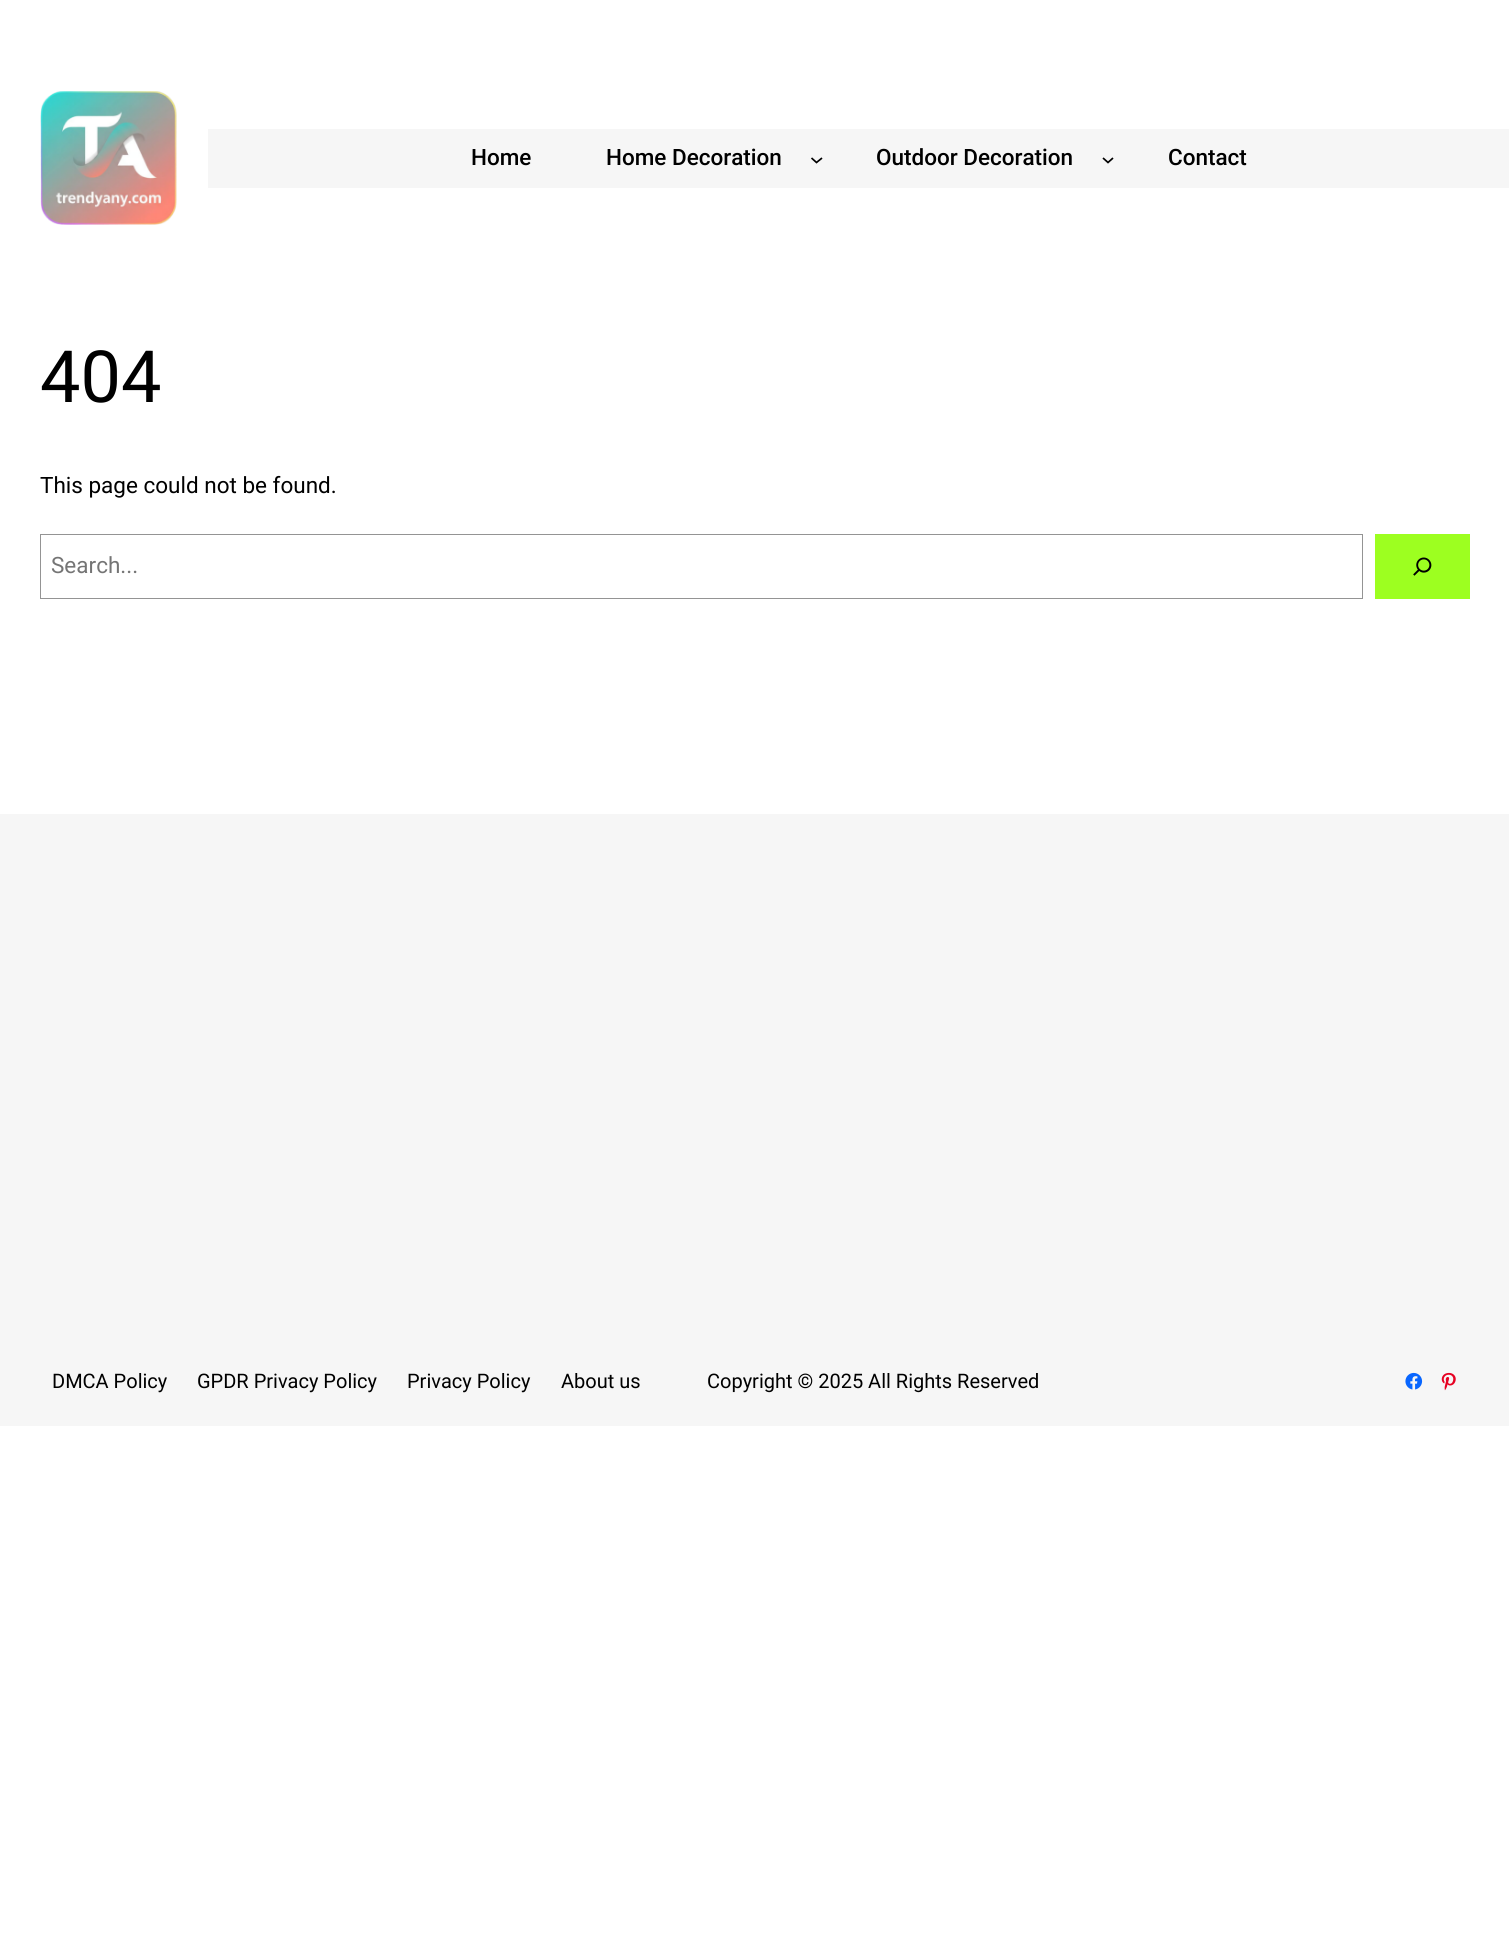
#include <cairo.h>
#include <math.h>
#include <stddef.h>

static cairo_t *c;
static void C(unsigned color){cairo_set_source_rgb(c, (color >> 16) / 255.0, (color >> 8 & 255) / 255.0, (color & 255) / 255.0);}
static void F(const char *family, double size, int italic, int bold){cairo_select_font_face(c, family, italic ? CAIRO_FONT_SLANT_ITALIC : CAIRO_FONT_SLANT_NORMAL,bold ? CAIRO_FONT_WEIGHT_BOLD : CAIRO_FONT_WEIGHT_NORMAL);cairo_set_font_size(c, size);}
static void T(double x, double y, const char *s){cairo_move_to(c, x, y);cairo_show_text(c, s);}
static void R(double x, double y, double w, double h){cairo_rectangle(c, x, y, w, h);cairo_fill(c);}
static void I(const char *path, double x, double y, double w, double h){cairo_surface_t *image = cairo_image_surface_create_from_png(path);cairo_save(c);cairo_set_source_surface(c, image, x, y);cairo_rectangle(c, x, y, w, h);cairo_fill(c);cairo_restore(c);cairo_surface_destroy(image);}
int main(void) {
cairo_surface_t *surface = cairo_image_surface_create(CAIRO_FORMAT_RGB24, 1509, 1960);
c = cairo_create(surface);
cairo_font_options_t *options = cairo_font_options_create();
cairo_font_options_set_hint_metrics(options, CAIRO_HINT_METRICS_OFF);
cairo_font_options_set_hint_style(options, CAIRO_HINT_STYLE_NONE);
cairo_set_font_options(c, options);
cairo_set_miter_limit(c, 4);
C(0xffffff);
cairo_paint(c);
I("1.png",40,91,137,134);
C(0xf6f6f6);
R(208,129,1301,59);
F("Roboto Medium",22.5,0,0);
C(0x000000);
T(471,165,"Home");
T(606,165,"Home Decoration");
cairo_new_path(c);
cairo_move_to(c,811.5,158);
cairo_line_to(c,816.5,162.5);
cairo_line_to(c,822,158);
cairo_set_line_width(c,1.7);
cairo_stroke(c);
T(876,165,"Outdoor Decoration");
cairo_new_path(c);
cairo_move_to(c,1103,158);
cairo_line_to(c,1108,162.5);
cairo_line_to(c,1113,158);
cairo_stroke(c);
T(1168,165,"Contact");
F("Roboto",72,0,0);
T(40,402,"404");
F("Roboto",22.5,0,0);
T(40,493,"This page could not be found.");
cairo_rectangle(c,40.5,534.5,1322,64);
C(0x949494);
cairo_set_line_width(c,1);
cairo_stroke(c);
C(0x757575);
T(51,573,"Search...");
C(0x9dff20);
R(1375,534,95,65);
I("2.png",1413,557,19,19);
C(0xf6f6f6);
R(0,814,1509,612);
F("Roboto",20,0,0);
C(0x000000);
T(52,1388,"DMCA Policy");
T(197,1388,"GPDR Privacy Policy");
T(407,1388,"Privacy Policy");
T(561,1388,"About us");
T(707,1388,"Copyright © 2025 All Rights Reserved");
I("3.png",1405,1372,18,18);
I("4.png",1441,1372,15,19);
cairo_surface_write_to_png(surface, "o.png");
cairo_font_options_destroy(options);
cairo_destroy(c);
cairo_surface_destroy(surface);
return 0;
}
